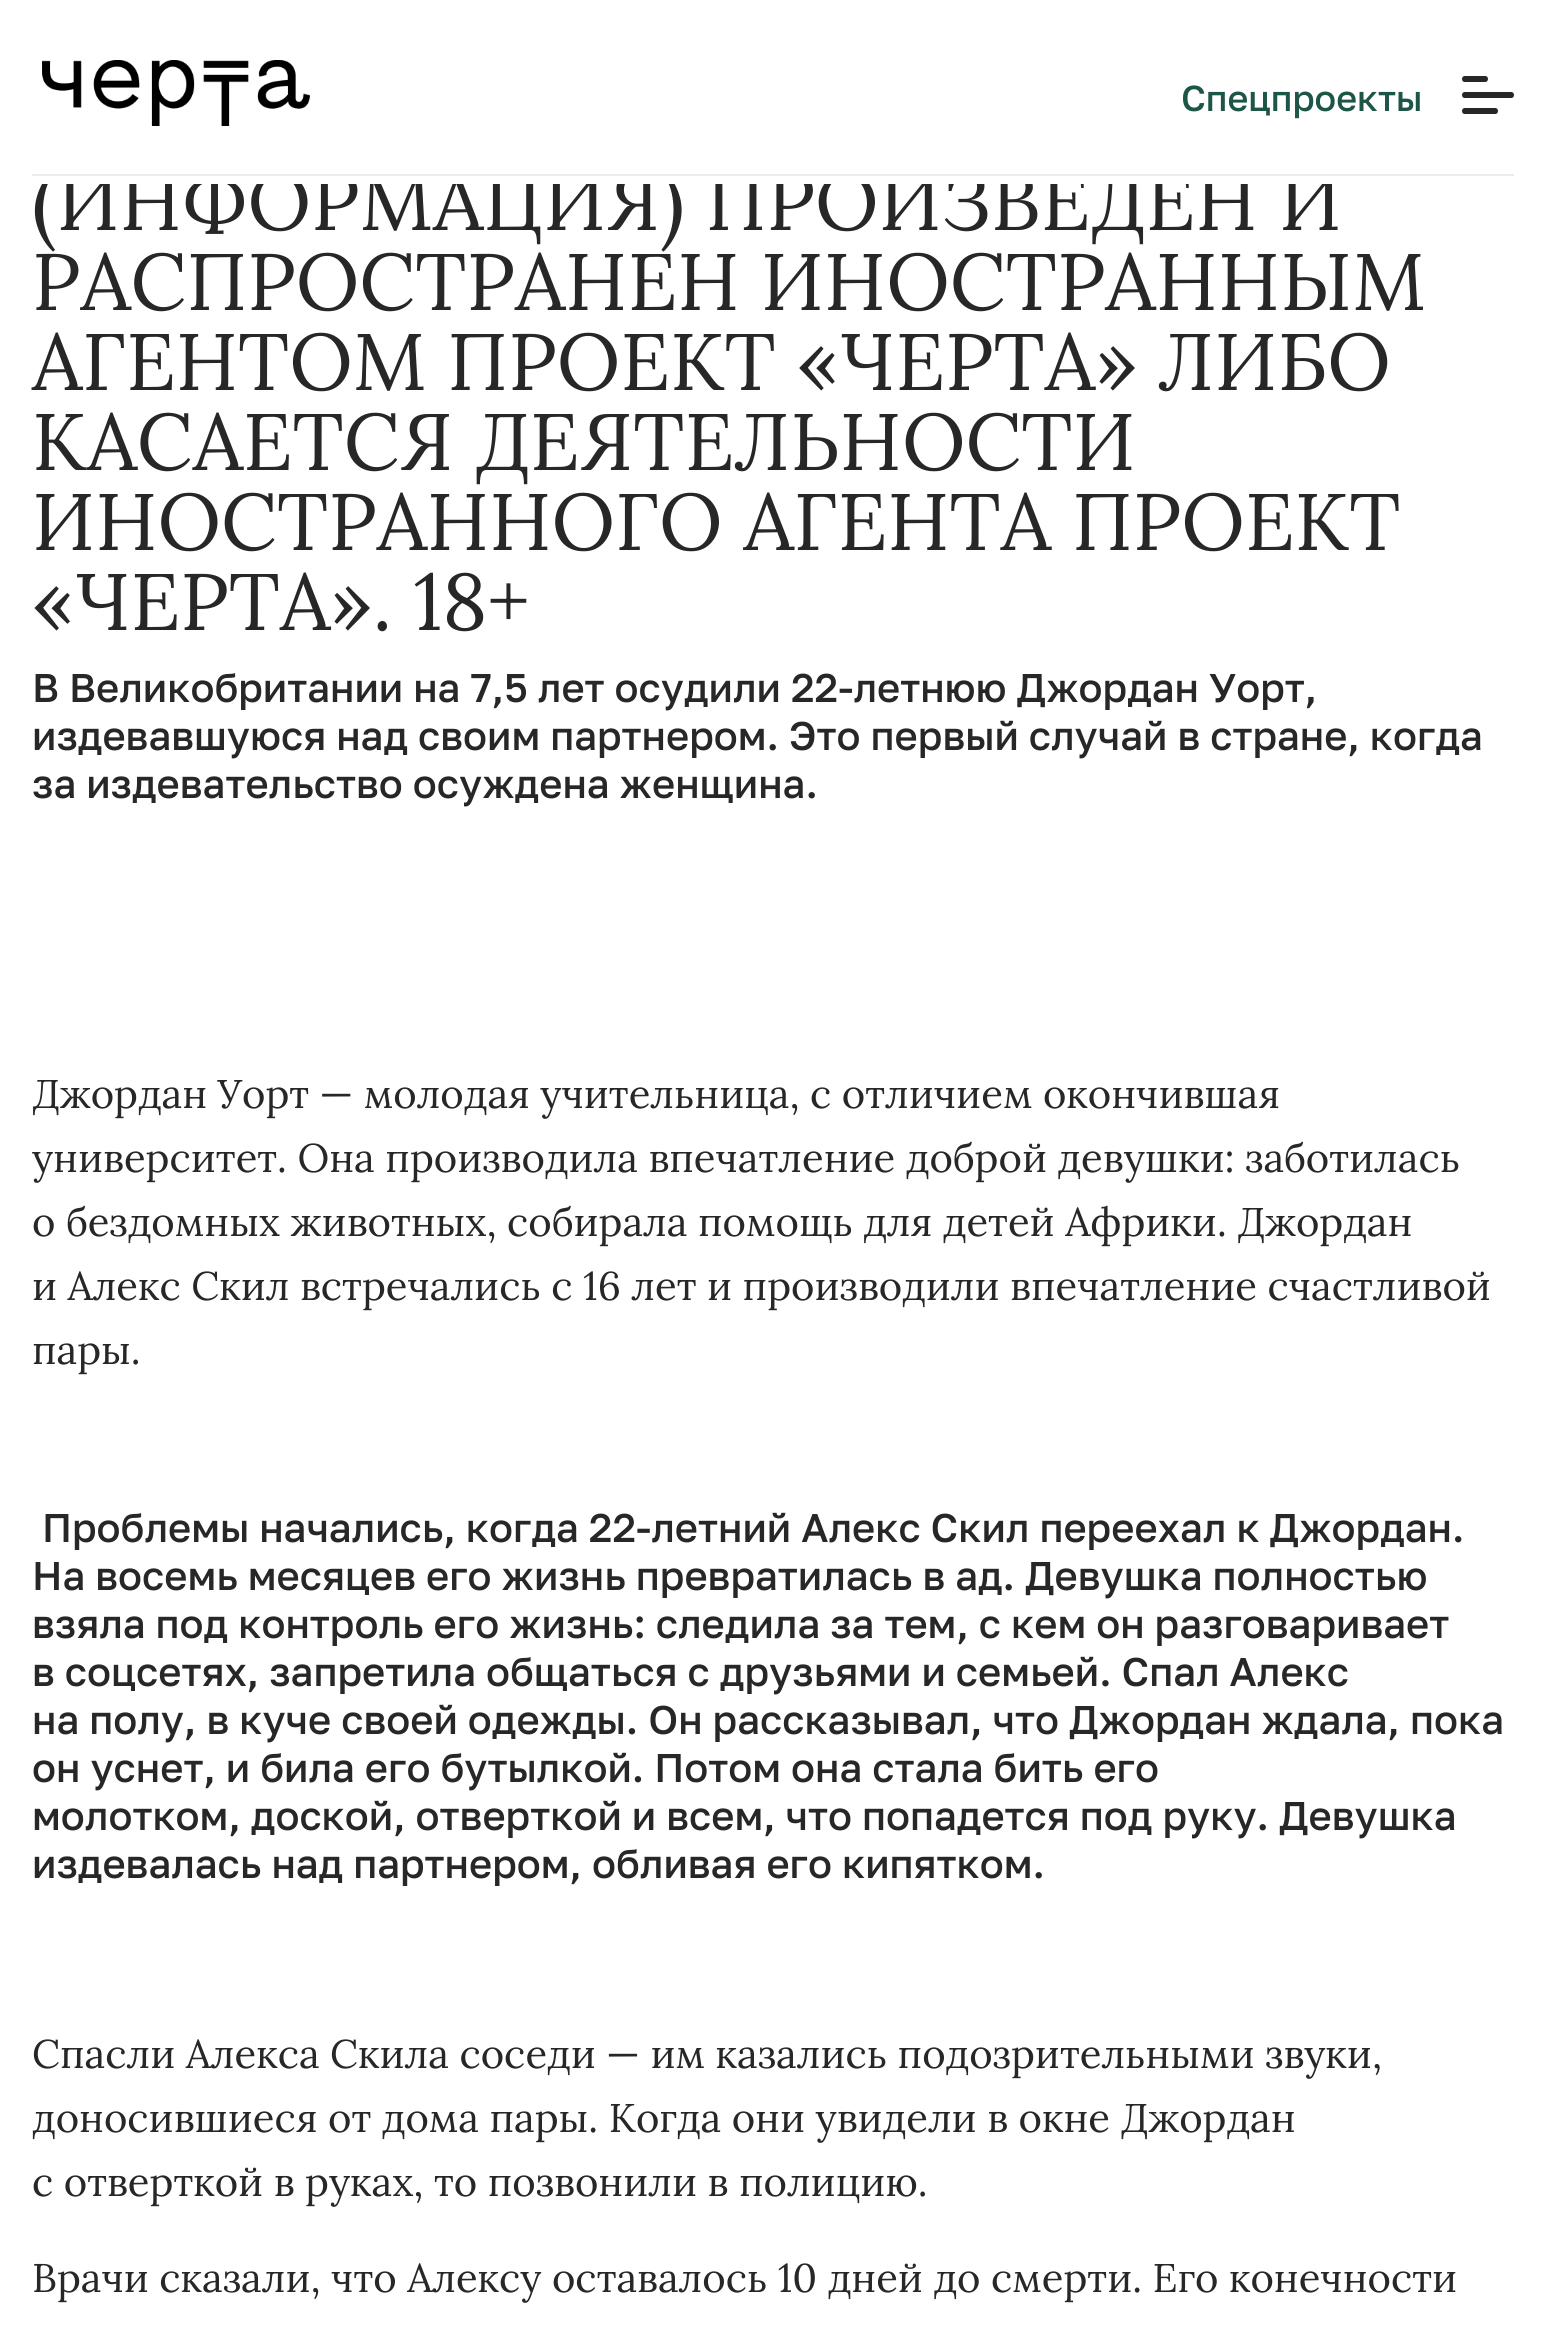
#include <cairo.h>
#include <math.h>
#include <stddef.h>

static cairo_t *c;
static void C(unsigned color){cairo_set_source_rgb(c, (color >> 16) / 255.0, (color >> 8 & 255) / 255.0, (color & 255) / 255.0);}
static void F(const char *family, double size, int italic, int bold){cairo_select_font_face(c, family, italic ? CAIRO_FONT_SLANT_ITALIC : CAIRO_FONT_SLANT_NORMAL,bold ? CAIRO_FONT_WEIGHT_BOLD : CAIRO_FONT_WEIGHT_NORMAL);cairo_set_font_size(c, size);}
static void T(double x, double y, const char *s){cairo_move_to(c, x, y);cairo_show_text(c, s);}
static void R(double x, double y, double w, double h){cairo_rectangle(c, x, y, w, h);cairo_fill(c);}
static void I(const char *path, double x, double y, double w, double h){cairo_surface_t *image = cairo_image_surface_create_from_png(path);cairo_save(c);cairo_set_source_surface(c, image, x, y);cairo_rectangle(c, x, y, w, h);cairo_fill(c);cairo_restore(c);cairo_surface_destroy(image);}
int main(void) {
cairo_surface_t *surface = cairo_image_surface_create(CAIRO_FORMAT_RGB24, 1545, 2338);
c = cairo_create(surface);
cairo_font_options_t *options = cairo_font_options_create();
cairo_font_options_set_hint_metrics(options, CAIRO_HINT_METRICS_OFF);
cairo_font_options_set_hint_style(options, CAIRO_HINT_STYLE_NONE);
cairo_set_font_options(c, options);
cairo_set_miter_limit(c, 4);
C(0xffffff);
cairo_paint(c);
F("Lora",80,0,0);
C(0x272727);
T(32,230,"(ИНФОРМАЦИЯ) ПРОИЗВЕДЕН И");
C(0xffffff);
R(42,169,1296,15);
I("1.png",42,60,268,66);
F("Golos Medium",36,0,0);
C(0x1d5548);
T(1181,111,"Спецпроекты");
I("2.png",1462,76,52,38);
C(0xececec);
R(32,174,1482,2);
F("Lora",80,0,0);
C(0x272727);
T(32,310,"РАСПРОСТРАНЕН ИНОСТРАННЫМ");
T(32,390,"АГЕНТОМ ПРОЕКТ «ЧЕРТА» ЛИБО");
T(32,470,"КАСАЕТСЯ ДЕЯТЕЛЬНОСТИ");
T(32,550,"ИНОСТРАННОГО АГЕНТА ПРОЕКТ");
T(32,630,"«ЧЕРТА». 18+");
F("Golos Medium",40,0,0);
T(32,702,"В Великобритании на 7,5 лет осудили 22-летнюю Джордан Уорт,");
T(32,750,"издевавшуюся над своим партнером. Это первый случай в стране, когда");
T(32,798,"за издевательство осуждена женщина.");
F("Lora",40,0,0);
T(32,1108,"Джордан Уорт — молодая учительница, с отличием окончившая");
T(32,1172,"университет. Она производила впечатление доброй девушки: заботилась");
T(32,1236,"о бездомных животных, собирала помощь для детей Африки. Джордан");
T(32,1300,"и Алекс Скил встречались с 16 лет и производили впечатление счастливой");
T(32,1364,"пары.");
F("Golos Medium",40,0,0);
T(42,1542,"Проблемы начались, когда 22-летний Алекс Скил переехал к Джордан.");
T(32,1590,"На восемь месяцев его жизнь превратилась в ад. Девушка полностью");
T(32,1638,"взяла под контроль его жизнь: следила за тем, с кем он разговаривает");
T(32,1686,"в соцсетях, запретила общаться с друзьями и семьей. Спал Алекс");
T(32,1734,"на полу, в куче своей одежды. Он рассказывал, что Джордан ждала, пока");
T(32,1782,"он уснет, и била его бутылкой. Потом она стала бить его");
T(32,1830,"молотком, доской, отверткой и всем, что попадется под руку. Девушка");
T(32,1878,"издевалась над партнером, обливая его кипятком.");
F("Lora",40,0,0);
T(32,2068,"Спасли Алекса Скила соседи — им казались подозрительными звуки,");
T(32,2132,"доносившиеся от дома пары. Когда они увидели в окне Джордан");
T(32,2196,"с отверткой в руках, то позвонили в полицию.");
T(32,2292,"Врачи сказали, что Алексу оставалось 10 дней до смерти. Его конечности");
cairo_surface_write_to_png(surface, "o.png");
cairo_font_options_destroy(options);
cairo_destroy(c);
cairo_surface_destroy(surface);
return 0;
}
